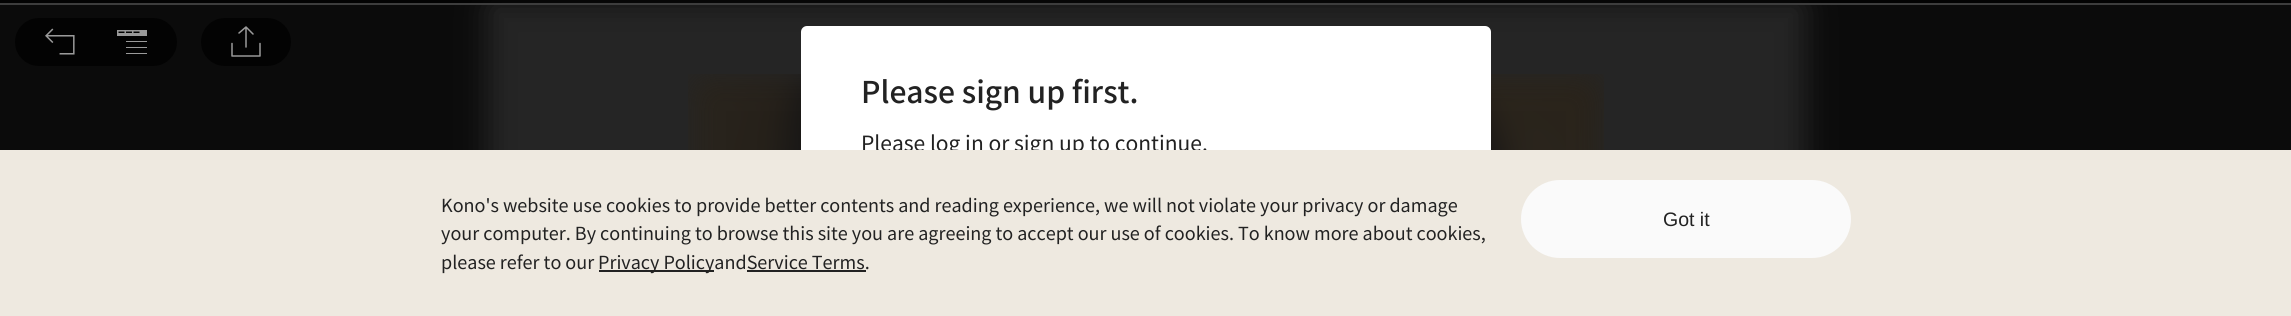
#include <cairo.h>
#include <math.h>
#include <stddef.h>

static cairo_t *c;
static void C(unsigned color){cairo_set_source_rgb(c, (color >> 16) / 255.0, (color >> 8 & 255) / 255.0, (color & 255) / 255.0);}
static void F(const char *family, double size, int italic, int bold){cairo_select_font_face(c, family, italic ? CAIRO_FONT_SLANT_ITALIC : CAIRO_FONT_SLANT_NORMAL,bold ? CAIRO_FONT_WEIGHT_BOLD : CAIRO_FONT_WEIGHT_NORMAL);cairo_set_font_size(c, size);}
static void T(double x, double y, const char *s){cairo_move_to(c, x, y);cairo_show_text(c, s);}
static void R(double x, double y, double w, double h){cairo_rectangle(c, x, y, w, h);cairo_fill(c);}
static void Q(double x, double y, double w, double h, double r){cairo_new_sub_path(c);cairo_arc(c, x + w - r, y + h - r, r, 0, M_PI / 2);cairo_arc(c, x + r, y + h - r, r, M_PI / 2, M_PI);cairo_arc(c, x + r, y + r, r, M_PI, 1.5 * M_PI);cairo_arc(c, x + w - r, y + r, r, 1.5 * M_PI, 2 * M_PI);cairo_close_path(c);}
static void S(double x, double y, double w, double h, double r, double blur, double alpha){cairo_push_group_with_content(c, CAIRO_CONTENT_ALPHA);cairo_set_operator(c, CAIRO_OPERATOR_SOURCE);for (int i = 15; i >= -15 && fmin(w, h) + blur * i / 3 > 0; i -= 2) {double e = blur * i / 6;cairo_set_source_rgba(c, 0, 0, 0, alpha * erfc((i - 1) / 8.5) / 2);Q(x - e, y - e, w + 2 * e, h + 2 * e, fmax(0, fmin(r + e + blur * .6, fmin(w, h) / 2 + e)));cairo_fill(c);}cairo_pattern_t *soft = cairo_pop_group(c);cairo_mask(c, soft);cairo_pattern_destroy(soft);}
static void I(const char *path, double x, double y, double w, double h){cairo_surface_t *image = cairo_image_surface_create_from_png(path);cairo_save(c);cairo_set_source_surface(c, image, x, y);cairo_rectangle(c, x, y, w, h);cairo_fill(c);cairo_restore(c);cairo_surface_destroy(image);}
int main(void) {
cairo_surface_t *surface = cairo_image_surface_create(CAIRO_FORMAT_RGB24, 2291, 316);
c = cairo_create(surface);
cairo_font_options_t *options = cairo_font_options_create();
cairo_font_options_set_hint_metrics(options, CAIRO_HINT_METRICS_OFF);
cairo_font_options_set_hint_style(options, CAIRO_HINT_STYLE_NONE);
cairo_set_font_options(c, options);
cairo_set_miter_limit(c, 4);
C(0x0b0b0b);
cairo_paint(c);
C(0x252525);
S(486,0,1320,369,8,15,1);
I("3.png",688,74,916,76);
C(0xffffff);
Q(801,26,690,267,6);
cairo_fill(c);
F("Noto Sans TC Medium",30,0,0);
C(0x222222);
T(861,103,"Please sign up first.");
F("Noto Sans TC",21,0,0);
T(861,151,"Please log in or sign up to continue.");
C(0x3d3d3d);
R(0,3,2291,2);
cairo_set_source_rgba(c,0,0,0,0.75);
R(0,0,2291,3);
C(0x030303);
Q(15,18,162,48,24);
cairo_fill(c);
I("1.png",45,28,30,27);
I("2.png",117,30,30,24);
Q(201,18,90,48,24);
cairo_fill(c);
cairo_new_path(c);
cairo_move_to(c,232,43.5);
cairo_line_to(c,232,56);
cairo_line_to(c,260,56);
cairo_line_to(c,260,43.5);
cairo_move_to(c,246,47);
cairo_line_to(c,246,27);
cairo_move_to(c,246,27);
cairo_line_to(c,239,33);
cairo_move_to(c,246,27);
cairo_line_to(c,253,34);
C(0x9b9b9b);
cairo_set_line_width(c,1.5);
cairo_set_line_cap(c,CAIRO_LINE_CAP_ROUND);
cairo_set_line_join(c,CAIRO_LINE_JOIN_ROUND);
cairo_stroke(c);
C(0xeee9e0);
R(0,150,2291,166);
F("Noto Sans TC",18,0,0);
C(0x222222);
T(441,212,"Kono's website use cookies to provide better contents and reading experience, we will not violate your privacy or damage");
T(441,240,"your computer. By continuing to browse this site you are agreeing to accept our use of cookies. To know more about cookies,");
T(441,269,"please refer to our");
R(599,270,115,2);
T(598,269,"Privacy PolicyandService Terms.");
R(747,270,119,2);
C(0xfafafa);
Q(1521,180,330,78,39);
cairo_fill(c);
F("Liberation Sans",19.5,0,0);
C(0x222222);
T(1663,226,"Got it");
cairo_surface_write_to_png(surface, "o.png");
cairo_font_options_destroy(options);
cairo_destroy(c);
cairo_surface_destroy(surface);
return 0;
}
